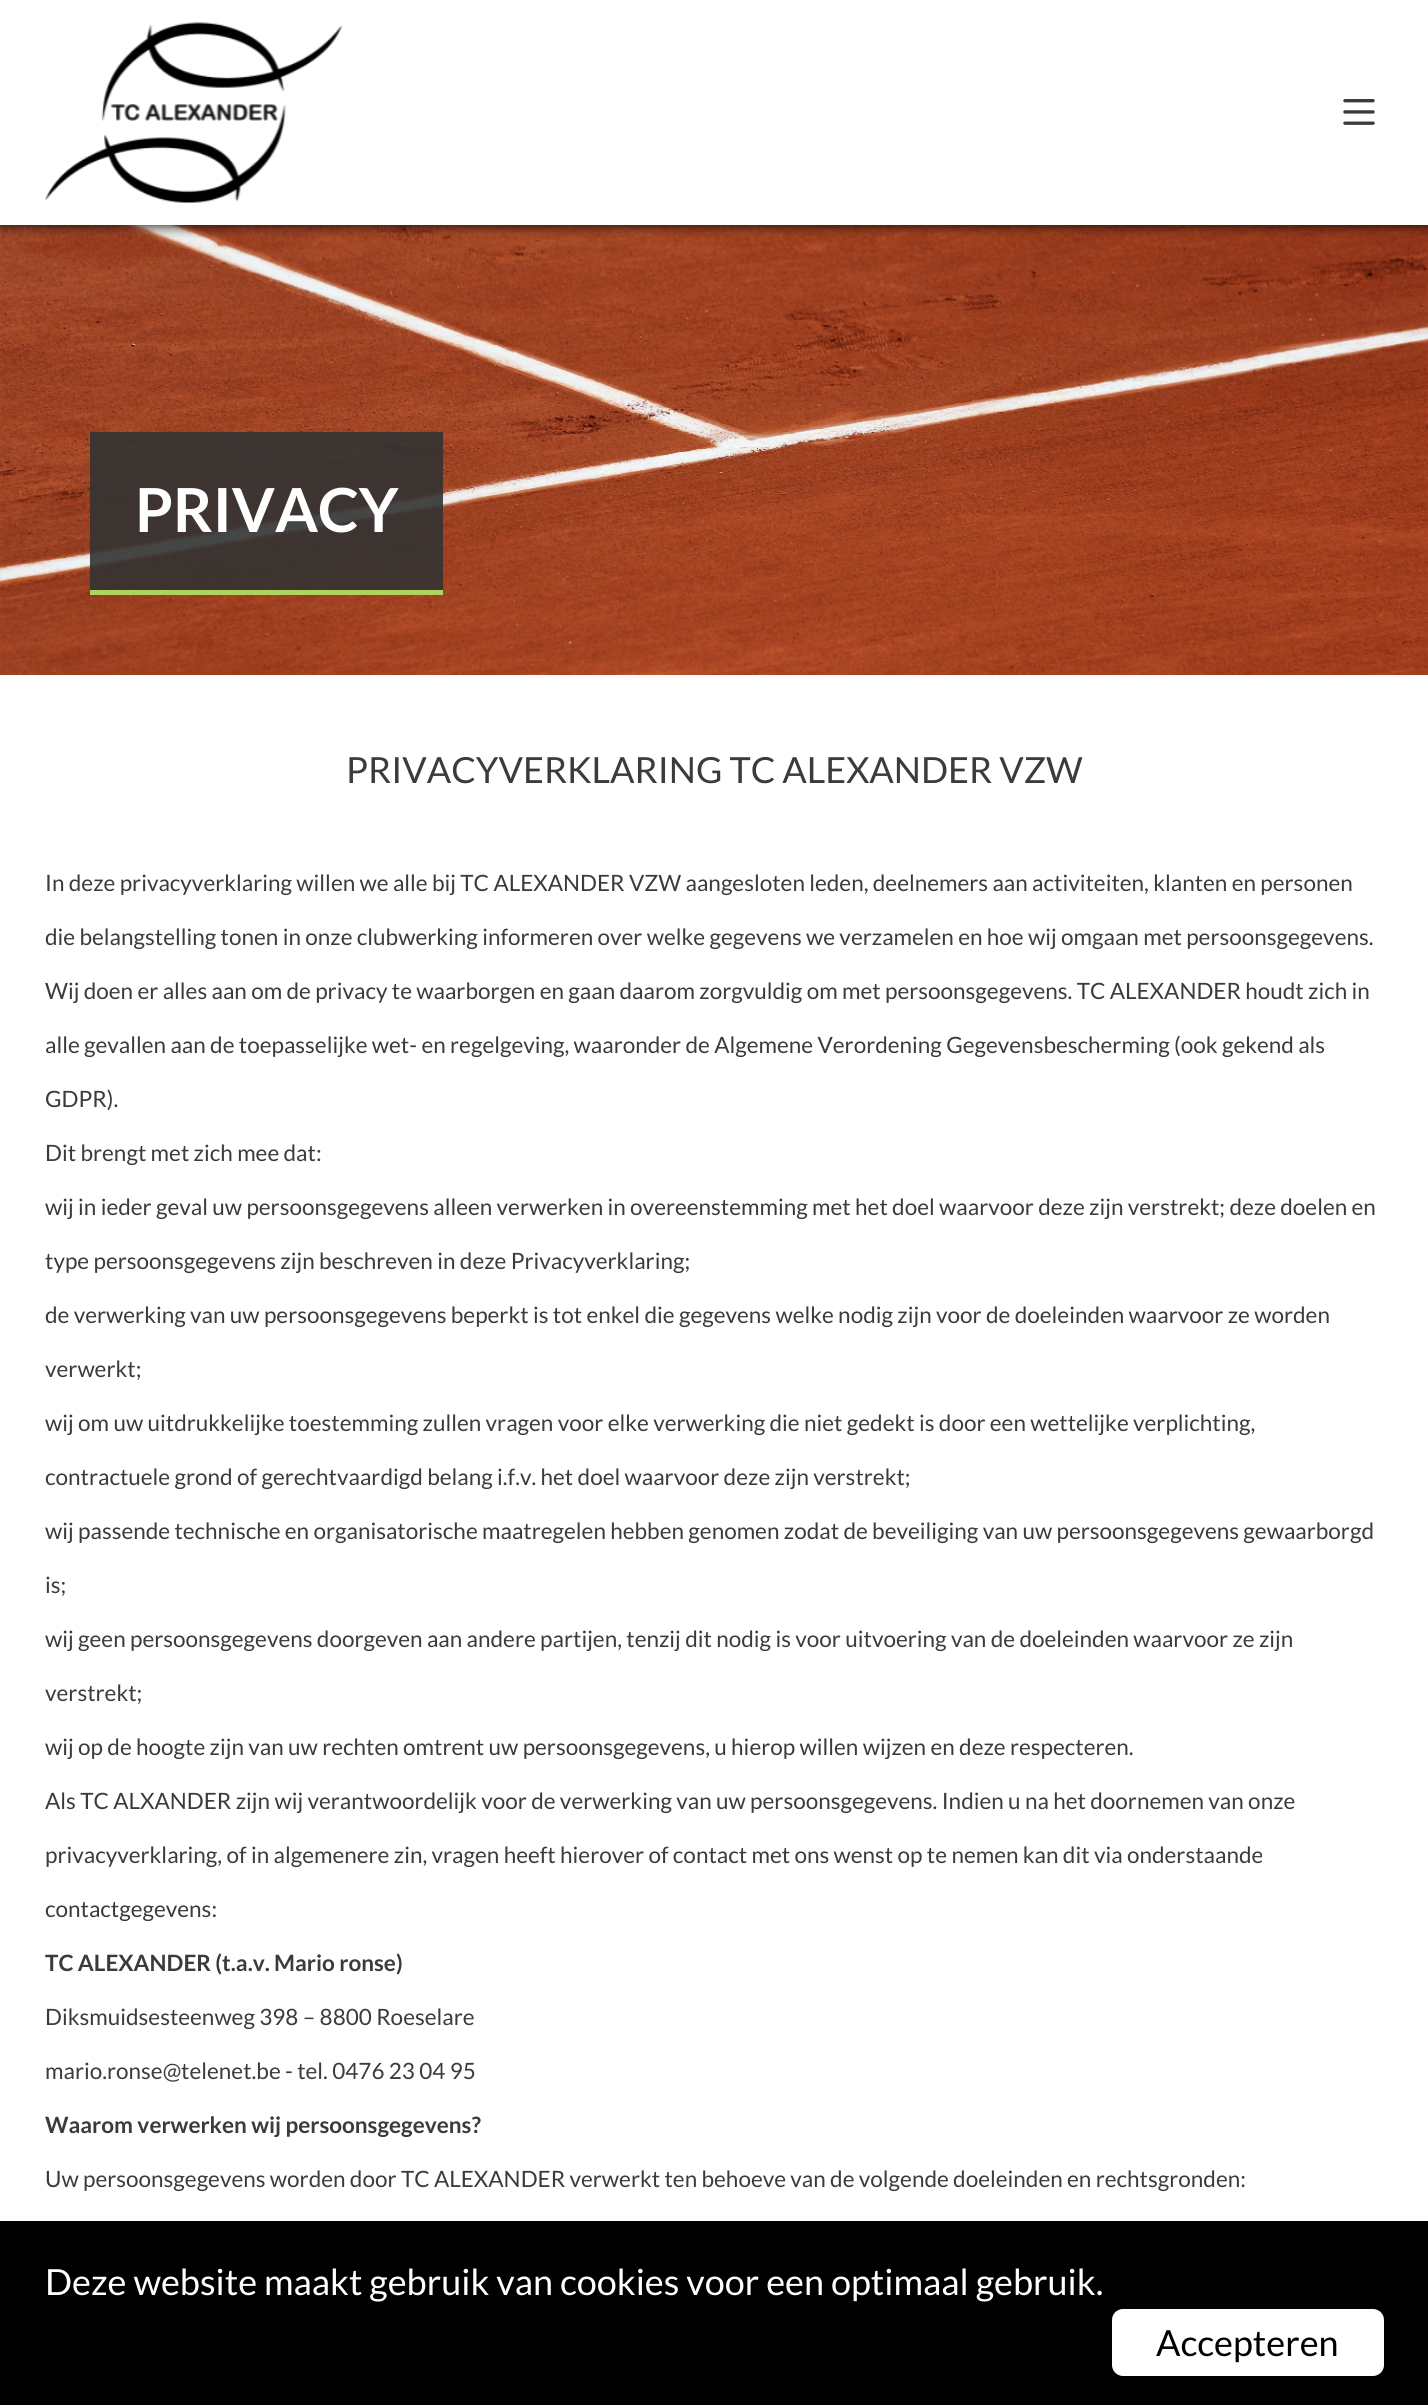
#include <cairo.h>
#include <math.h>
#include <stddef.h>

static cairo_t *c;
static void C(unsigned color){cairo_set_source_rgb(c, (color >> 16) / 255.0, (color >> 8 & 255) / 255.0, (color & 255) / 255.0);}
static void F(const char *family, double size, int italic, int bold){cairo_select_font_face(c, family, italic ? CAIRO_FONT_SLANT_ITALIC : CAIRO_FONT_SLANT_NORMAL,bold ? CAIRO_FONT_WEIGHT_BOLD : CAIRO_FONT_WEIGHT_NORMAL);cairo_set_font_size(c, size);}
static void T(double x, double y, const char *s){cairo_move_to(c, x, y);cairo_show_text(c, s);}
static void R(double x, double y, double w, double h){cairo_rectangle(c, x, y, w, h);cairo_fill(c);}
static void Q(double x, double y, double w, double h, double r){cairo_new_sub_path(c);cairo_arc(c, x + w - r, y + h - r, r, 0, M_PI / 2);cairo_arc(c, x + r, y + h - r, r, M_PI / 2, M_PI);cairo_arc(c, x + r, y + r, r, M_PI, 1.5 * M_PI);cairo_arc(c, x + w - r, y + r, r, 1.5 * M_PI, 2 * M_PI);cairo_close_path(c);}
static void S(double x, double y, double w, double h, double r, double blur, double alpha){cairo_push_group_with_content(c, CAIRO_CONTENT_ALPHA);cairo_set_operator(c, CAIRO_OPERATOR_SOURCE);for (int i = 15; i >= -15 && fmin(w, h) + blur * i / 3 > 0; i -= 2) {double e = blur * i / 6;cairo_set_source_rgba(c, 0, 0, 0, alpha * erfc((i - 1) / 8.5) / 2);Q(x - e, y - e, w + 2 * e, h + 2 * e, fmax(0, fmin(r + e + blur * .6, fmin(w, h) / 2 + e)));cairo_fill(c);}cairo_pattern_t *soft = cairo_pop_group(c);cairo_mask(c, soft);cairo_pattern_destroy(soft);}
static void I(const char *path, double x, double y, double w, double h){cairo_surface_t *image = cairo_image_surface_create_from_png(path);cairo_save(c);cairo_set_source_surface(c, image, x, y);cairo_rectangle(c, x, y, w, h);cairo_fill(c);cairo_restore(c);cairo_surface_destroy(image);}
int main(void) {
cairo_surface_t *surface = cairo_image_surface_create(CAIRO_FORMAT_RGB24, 1428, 2405);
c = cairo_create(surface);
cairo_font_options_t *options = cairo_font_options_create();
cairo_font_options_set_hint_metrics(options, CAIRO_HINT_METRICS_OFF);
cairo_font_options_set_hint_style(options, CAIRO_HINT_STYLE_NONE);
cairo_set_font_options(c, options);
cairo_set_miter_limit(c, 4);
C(0xffffff);
cairo_paint(c);
I("3.png",0,225,1428,450);
cairo_save(c);
cairo_rectangle(c,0,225,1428,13);
cairo_clip(c);
C(0x000000);
S(0,2,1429,225,0,5.5,.75);
cairo_restore(c);
I("1.png",45,22,297,181);
I("2.png",1343,99,32,26);
cairo_set_source_rgba(c,0.2,0.2,0.2,0.9);
R(90,432,353,158);
C(0xafd360);
R(90,590,353,5);
F("Lato",60.75,0,1);
C(0xffffff);
T(135,532,"PRIVACY");
F("Lato",36,0,0);
C(0x3b3b3b);
T(346,783,"PRIVACYVERKLARING TC ALEXANDER VZW");
F("Lato",22.5,0,0);
T(45,891,"In deze privacyverklaring willen we alle bij TC ALEXANDER VZW aangesloten leden, deelnemers aan activiteiten, klanten en personen");
T(45,945,"die belangstelling tonen in onze clubwerking informeren over welke gegevens we verzamelen en hoe wij omgaan met persoonsgegevens.");
T(45,999,"Wij doen er alles aan om de privacy te waarborgen en gaan daarom zorgvuldig om met persoonsgegevens. TC ALEXANDER houdt zich in");
T(45,1053,"alle gevallen aan de toepasselijke wet- en regelgeving, waaronder de Algemene Verordening Gegevensbescherming (ook gekend als");
T(45,1107,"GDPR).");
T(45,1161,"Dit brengt met zich mee dat:");
T(45,1215,"wij in ieder geval uw persoonsgegevens alleen verwerken in overeenstemming met het doel waarvoor deze zijn verstrekt; deze doelen en");
T(45,1269,"type persoonsgegevens zijn beschreven in deze Privacyverklaring;");
T(45,1323,"de verwerking van uw persoonsgegevens beperkt is tot enkel die gegevens welke nodig zijn voor de doeleinden waarvoor ze worden");
T(45,1377,"verwerkt;");
T(45,1431,"wij om uw uitdrukkelijke toestemming zullen vragen voor elke verwerking die niet gedekt is door een wettelijke verplichting,");
T(45,1485,"contractuele grond of gerechtvaardigd belang i.f.v. het doel waarvoor deze zijn verstrekt;");
T(45,1539,"wij passende technische en organisatorische maatregelen hebben genomen zodat de beveiliging van uw persoonsgegevens gewaarborgd");
T(45,1593,"is;");
T(45,1647,"wij geen persoonsgegevens doorgeven aan andere partijen, tenzij dit nodig is voor uitvoering van de doeleinden waarvoor ze zijn");
T(45,1701,"verstrekt;");
T(45,1755,"wij op de hoogte zijn van uw rechten omtrent uw persoonsgegevens, u hierop willen wijzen en deze respecteren.");
T(45,1809,"Als TC ALXANDER zijn wij verantwoordelijk voor de verwerking van uw persoonsgegevens. Indien u na het doornemen van onze");
T(45,1863,"privacyverklaring, of in algemenere zin, vragen heeft hierover of contact met ons wenst op te nemen kan dit via onderstaande");
T(45,1917,"contactgegevens:");
F("Lato",22.5,0,1);
T(45,1971,"TC ALEXANDER (t.a.v. Mario ronse)");
F("Lato",22.5,0,0);
T(45,2025,"Diksmuidsesteenweg 398 – 8800 Roeselare");
T(45,2079,"mario.ronse@telenet.be - tel. 0476 23 04 95");
F("Lato",22.5,0,1);
T(45,2133,"Waarom verwerken wij persoonsgegevens?");
F("Lato",22.5,0,0);
T(45,2187,"Uw persoonsgegevens worden door TC ALEXANDER verwerkt ten behoeve van de volgende doeleinden en rechtsgronden:");
C(0x000000);
R(0,2221,1428,184);
F("Lato",36,0,0);
C(0xffffff);
T(45,2295,"Deze website maakt gebruik van cookies voor een optimaal gebruik.");
Q(1112,2309,272,67,11);
cairo_fill(c);
C(0x000000);
T(1156,2356,"Accepteren");
cairo_surface_write_to_png(surface, "o.png");
cairo_font_options_destroy(options);
cairo_destroy(c);
cairo_surface_destroy(surface);
return 0;
}
